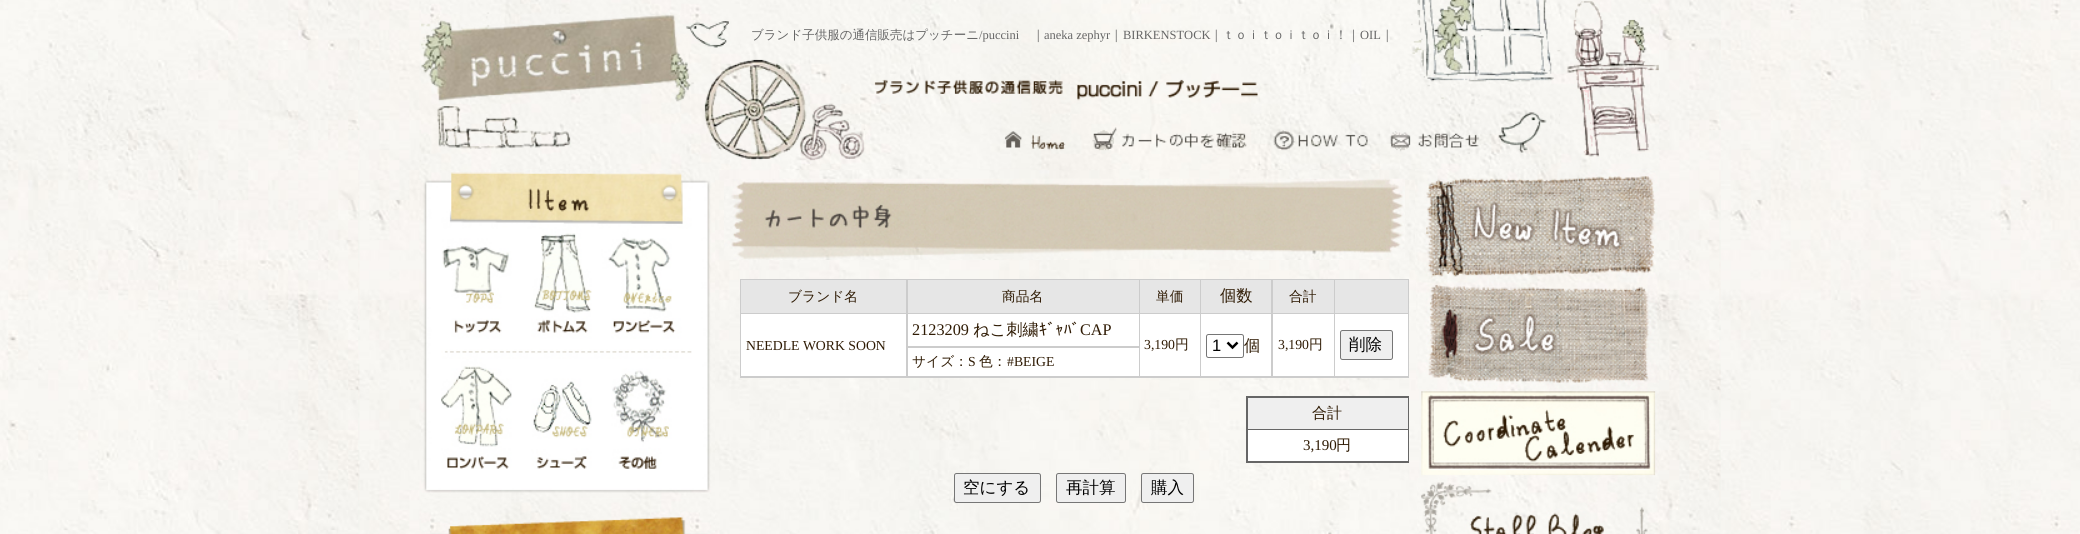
#include <cairo.h>
#include <math.h>
#include <stddef.h>

static cairo_t *c;
static void C(unsigned color){cairo_set_source_rgb(c, (color >> 16) / 255.0, (color >> 8 & 255) / 255.0, (color & 255) / 255.0);}
static void F(const char *family, double size, int italic, int bold){cairo_select_font_face(c, family, italic ? CAIRO_FONT_SLANT_ITALIC : CAIRO_FONT_SLANT_NORMAL,bold ? CAIRO_FONT_WEIGHT_BOLD : CAIRO_FONT_WEIGHT_NORMAL);cairo_set_font_size(c, size);}
static void T(double x, double y, const char *s){cairo_move_to(c, x, y);cairo_show_text(c, s);}
static void R(double x, double y, double w, double h){cairo_rectangle(c, x, y, w, h);cairo_fill(c);}
static void Q(double x, double y, double w, double h, double r){cairo_new_sub_path(c);cairo_arc(c, x + w - r, y + h - r, r, 0, M_PI / 2);cairo_arc(c, x + r, y + h - r, r, M_PI / 2, M_PI);cairo_arc(c, x + r, y + r, r, M_PI, 1.5 * M_PI);cairo_arc(c, x + w - r, y + r, r, 1.5 * M_PI, 2 * M_PI);cairo_close_path(c);}
static void I(const char *path, double x, double y, double w, double h){cairo_surface_t *image = cairo_image_surface_create_from_png(path);cairo_save(c);cairo_set_source_surface(c, image, x, y);cairo_rectangle(c, x, y, w, h);cairo_fill(c);cairo_restore(c);cairo_surface_destroy(image);}
int main(void) {
cairo_surface_t *surface = cairo_image_surface_create(CAIRO_FORMAT_RGB24, 2080, 534);
c = cairo_create(surface);
cairo_font_options_t *options = cairo_font_options_create();
cairo_font_options_set_hint_metrics(options, CAIRO_HINT_METRICS_OFF);
cairo_font_options_set_hint_style(options, CAIRO_HINT_STYLE_NONE);
cairo_set_font_options(c, options);
cairo_set_miter_limit(c, 4);
C(0xffffff);
cairo_paint(c);
I("1.png",0,0,2080,534);
I("2.png",421,0,1238,169);
F("WenQuanYi Zen Hei Medium",12.5,0,0);
C(0x666666);
T(751,39,"ブランド子供服の通信販売はプッチーニ");
F("Liberation Serif",12.5,0,0);
T(979,39,"/puccini");
F("WenQuanYi Zen Hei Medium",12.5,0,0);
T(1032,39,"｜");
F("Liberation Serif",12.5,0,0);
T(1044,39,"aneka zephyr");
F("WenQuanYi Zen Hei Medium",12.5,0,0);
T(1110,39,"｜");
F("Liberation Serif",12.5,0,0);
T(1123,39,"BIRKENSTOCK");
F("WenQuanYi Zen Hei Medium",12.5,0,0);
T(1210,39,"｜ｔｏｉｔｏｉｔｏｉ！｜");
F("Liberation Serif",12.5,0,0);
T(1360,39,"OIL");
F("WenQuanYi Zen Hei Medium",12.5,0,0);
T(1381,39,"｜");
I("4.png",421,498,294,36);
I("3.png",421,169,294,330);
I("5.png",421,499,294,35);
I("6.png",724,178,681,82);
C(0xcccccc);
R(740,279,669,99);
C(0xe6e6e6);
R(741,280,165,33);
F("WenQuanYi Zen Hei Medium",13.75,0,0);
C(0x2f1b04);
T(788,301,"ブランド名");
C(0xe6e6e6);
R(908,280,231,33);
C(0x2f1b04);
T(1002,301,"商品名");
C(0xe6e6e6);
R(1140,280,60,33);
C(0x2f1b04);
T(1156,301,"単価");
C(0xe6e6e6);
R(1201,280,70,33);
F("WenQuanYi Zen Hei Medium",16.25,0,0);
C(0x2f1b04);
T(1220,301,"個数");
C(0xe6e6e6);
R(1273,280,61,33);
F("WenQuanYi Zen Hei Medium",13.75,0,0);
C(0x2f1b04);
T(1289,301,"合計");
C(0xe6e6e6);
R(1335,280,73,33);
C(0xffffff);
R(908,314,231,32);
F("Liberation Serif",16.25,0,0);
C(0x2f1b04);
T(912,335,"2123209");
F("WenQuanYi Zen Hei Medium",16.25,0,0);
T(973,335,"ねこ刺繍");
F("IPAPGothic",16.25,0,0);
T(1039,335,"ｷﾞｬﾊﾞ");
F("Liberation Serif",16.25,0,0);
T(1080,335,"CAP");
C(0xffffff);
R(741,314,165,62);
F("Liberation Serif",13.75,0,0);
C(0x2f1b04);
T(746,350,"NEEDLE WORK SOON");
C(0xffffff);
R(1140,314,60,62);
C(0x2f1b04);
T(1144,349,"3,190");
F("WenQuanYi Zen Hei Medium",13.75,0,0);
T(1175,349,"円");
C(0xffffff);
R(1201,314,70,62);
Q(1206.5,334.5,37,23,2);
C(0x767676);
cairo_set_line_width(c,1);
cairo_stroke(c);
cairo_new_path(c);
cairo_move_to(c,1227.5,342.5);
cairo_line_to(c,1232.5,347.5);
cairo_line_to(c,1237.5,342.5);
C(0x000000);
cairo_set_line_width(c,2.5);
cairo_stroke(c);
F("Liberation Sans",16.5,0,0);
T(1212,351,"1");
F("WenQuanYi Zen Hei Medium",16.25,0,0);
C(0x2f1b04);
T(1244,351,"個");
C(0xffffff);
R(1273,314,61,62);
F("Liberation Serif",13.75,0,0);
C(0x2f1b04);
T(1278,349,"3,190");
F("WenQuanYi Zen Hei Medium",13.75,0,0);
T(1309,349,"円");
C(0xffffff);
R(1335,314,73,62);
C(0xefefef);
Q(1340.5,330.5,52,29,2);
cairo_fill_preserve(c);
C(0x767676);
cairo_set_line_width(c,1);
cairo_stroke(c);
F("WenQuanYi Zen Hei Medium",16.5,0,0);
C(0x000000);
T(1349,350,"削除");
C(0xffffff);
R(908,348,231,28);
F("WenQuanYi Zen Hei Medium",13.75,0,0);
C(0x2f1b04);
T(912,366,"サイズ：");
F("Liberation Serif",13.75,0,0);
T(968,366,"S");
F("WenQuanYi Zen Hei Medium",13.75,0,0);
T(979,366,"色：");
F("Liberation Serif",13.75,0,0);
T(1007,366,"#BEIGE");
C(0x666666);
R(1246,396,163,67);
C(0xefefef);
R(1248,398,160,31);
F("WenQuanYi Zen Hei Medium",15,0,0);
C(0x2f1b04);
T(1312,418,"合計");
C(0xffffff);
R(1248,430,160,31);
F("Liberation Serif",15,0,0);
C(0x2f1b04);
T(1303,450,"3,190");
F("WenQuanYi Zen Hei Medium",15,0,0);
T(1336,450,"円");
C(0xefefef);
Q(954.5,473.5,86,29,2);
cairo_fill_preserve(c);
C(0x767676);
cairo_stroke(c);
F("WenQuanYi Zen Hei Medium",16.5,0,0);
C(0x000000);
T(963,493,"空にする");
C(0xefefef);
Q(1056.5,473.5,69,29,2);
cairo_fill_preserve(c);
C(0x767676);
cairo_stroke(c);
C(0x000000);
T(1066,493,"再計算");
C(0xefefef);
Q(1141.5,473.5,52,29,2);
cairo_fill_preserve(c);
C(0x767676);
cairo_stroke(c);
C(0x000000);
T(1151,493,"購入");
I("7.png",1415,169,244,110);
I("8.png",1416,279,243,110);
I("9.png",1421,389,238,89);
I("10.png",1417,478,242,56);
cairo_surface_write_to_png(surface, "o.png");
cairo_font_options_destroy(options);
cairo_destroy(c);
cairo_surface_destroy(surface);
return 0;
}
